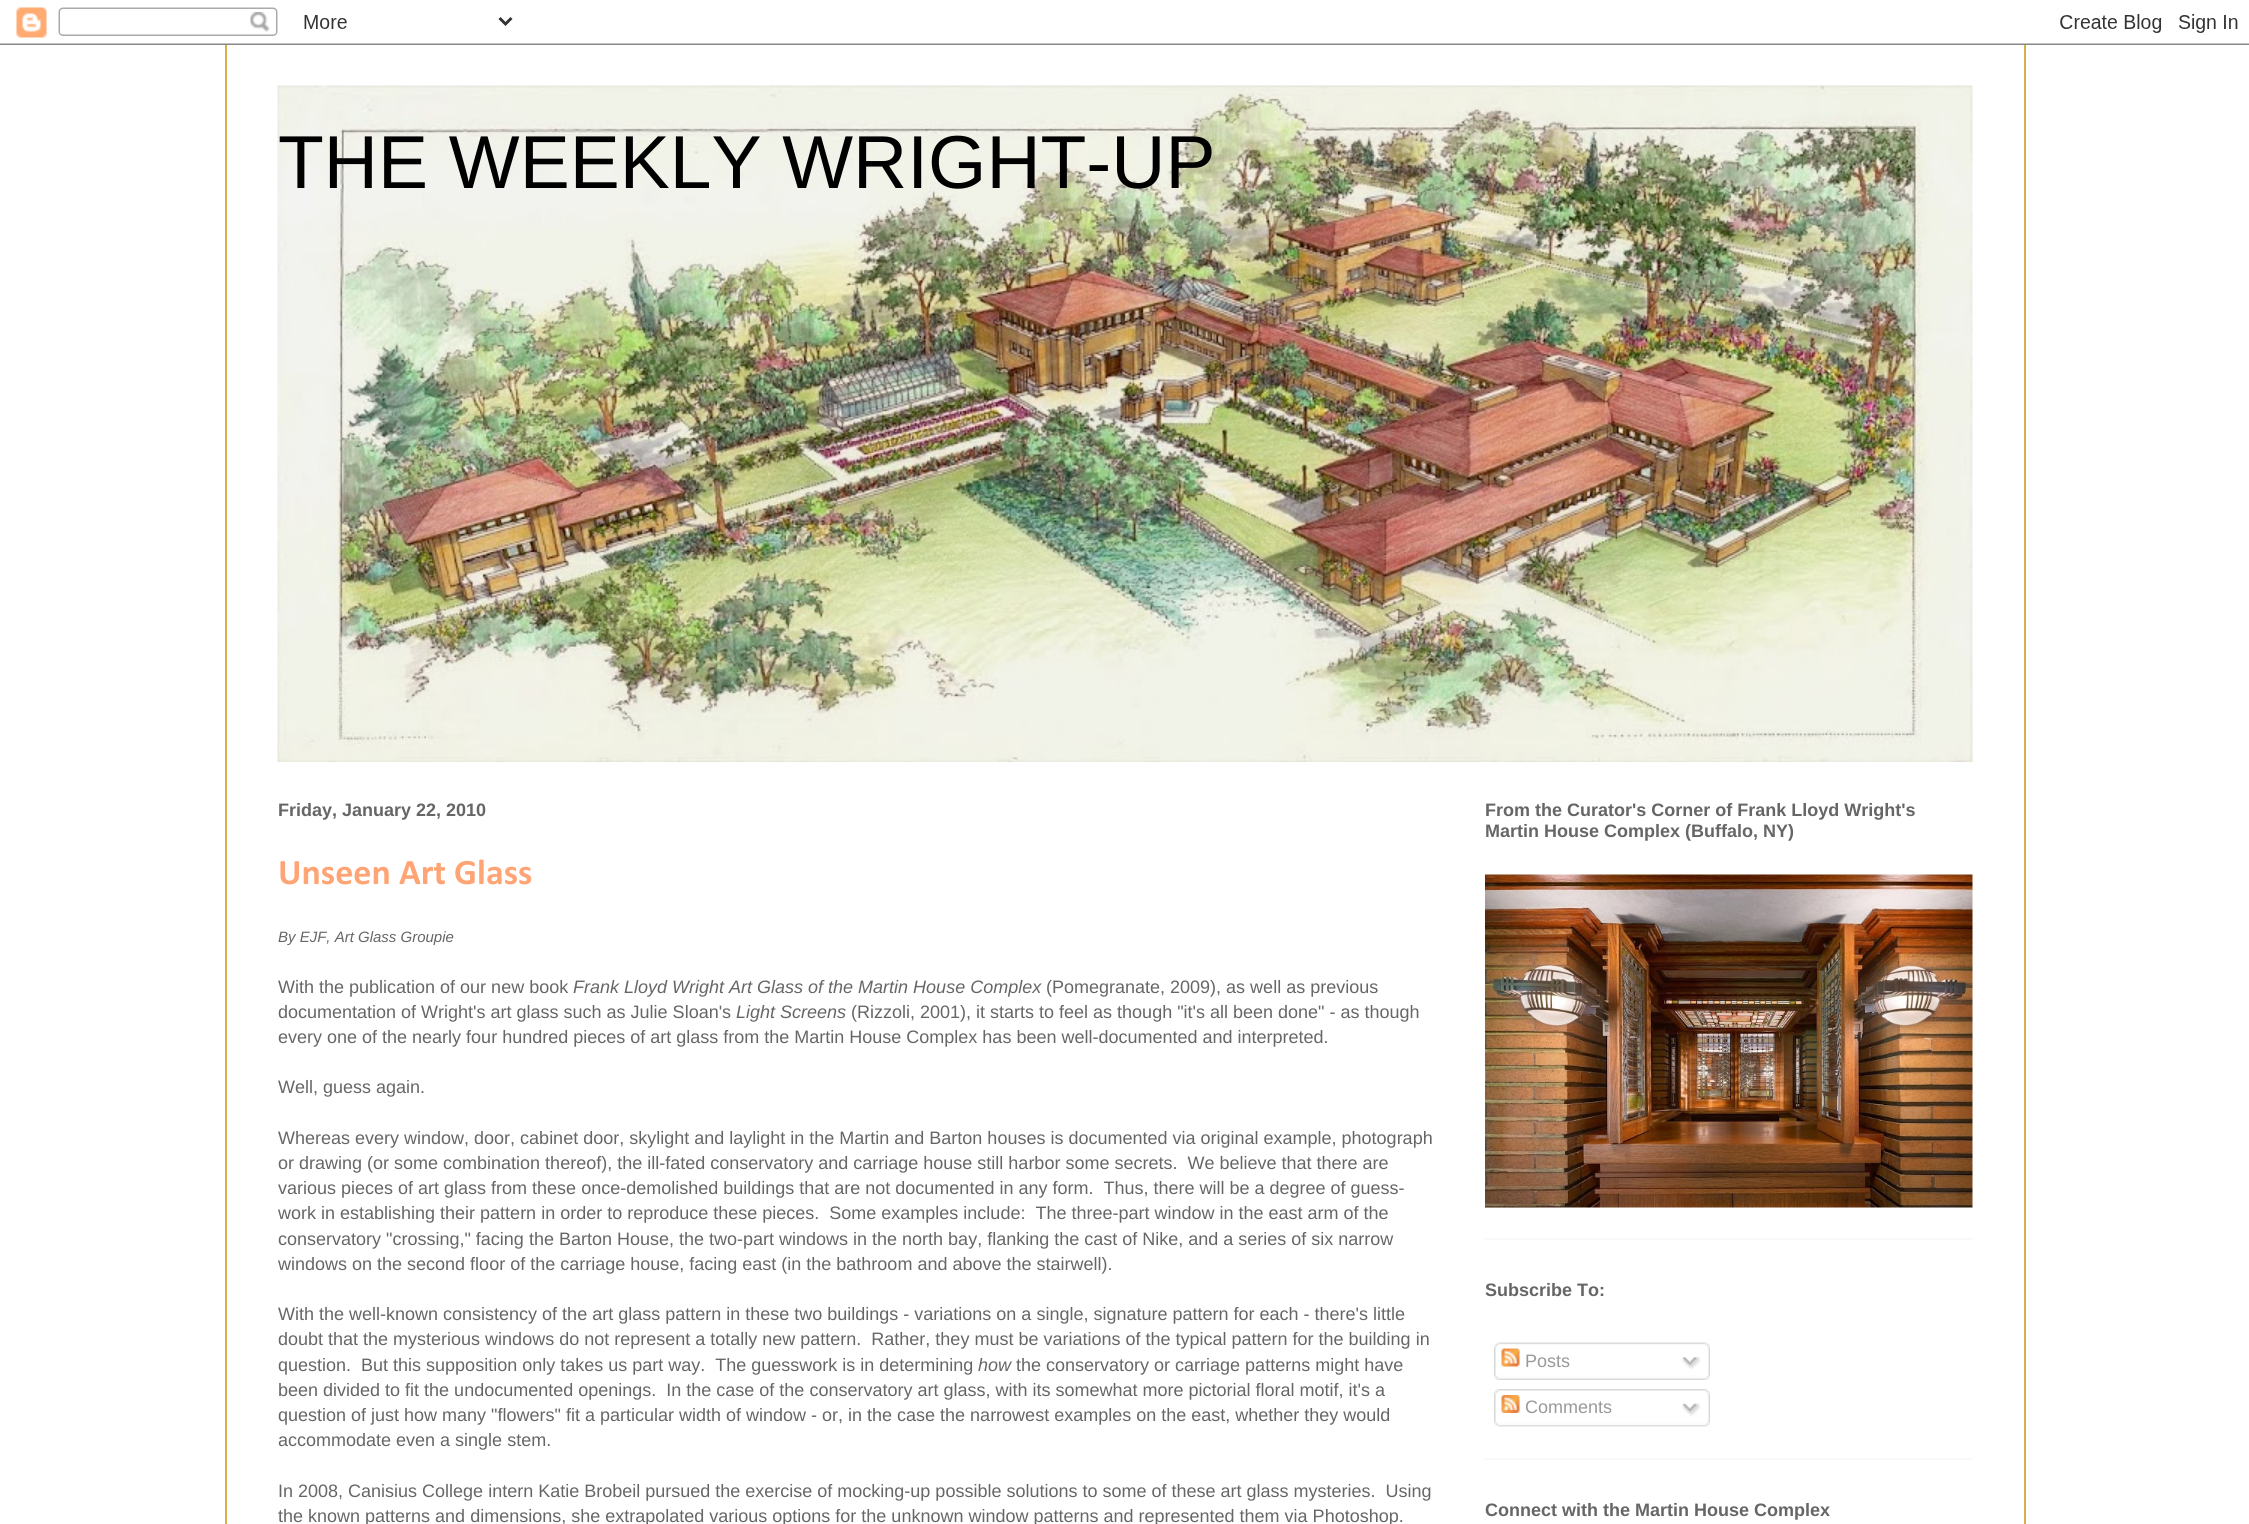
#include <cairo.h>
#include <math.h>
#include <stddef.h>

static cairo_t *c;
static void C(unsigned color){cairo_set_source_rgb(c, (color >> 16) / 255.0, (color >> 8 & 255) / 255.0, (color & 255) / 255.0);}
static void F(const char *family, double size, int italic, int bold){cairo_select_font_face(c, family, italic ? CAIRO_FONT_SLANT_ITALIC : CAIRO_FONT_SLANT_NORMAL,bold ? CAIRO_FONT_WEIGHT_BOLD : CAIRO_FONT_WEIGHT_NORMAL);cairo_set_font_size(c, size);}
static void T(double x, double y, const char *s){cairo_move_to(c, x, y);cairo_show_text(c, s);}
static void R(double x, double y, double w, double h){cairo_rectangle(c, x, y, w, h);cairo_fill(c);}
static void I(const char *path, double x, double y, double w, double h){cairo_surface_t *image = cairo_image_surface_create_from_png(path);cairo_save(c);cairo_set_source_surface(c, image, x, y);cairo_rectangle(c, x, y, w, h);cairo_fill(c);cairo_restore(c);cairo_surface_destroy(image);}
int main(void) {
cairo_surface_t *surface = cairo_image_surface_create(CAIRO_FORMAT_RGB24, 2249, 1524);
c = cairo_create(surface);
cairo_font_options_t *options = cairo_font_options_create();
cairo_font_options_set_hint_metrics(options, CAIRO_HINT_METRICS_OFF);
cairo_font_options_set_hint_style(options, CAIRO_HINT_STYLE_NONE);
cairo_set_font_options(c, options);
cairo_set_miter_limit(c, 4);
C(0xffffff);
cairo_paint(c);
I("1.png",0,7,2249,38);
C(0xd8af4c);
R(2024,45,2,1479);
R(225,45,2,1479);
I("2.png",277,85,1696,677);
F("Liberation Sans",75,0,0);
C(0x000000);
T(278,188,"THE WEEKLY WRIGHT-UP");
F("Liberation Sans",18,0,1);
C(0x666666);
T(278,816,"Friday, January 22, 2010");
F("Calibri",36,0,1);
C(0xffa575);
T(278,884,"Unseen Art Glass");
F("Liberation Sans",15,1,0);
C(0x666666);
T(278,942,"By EJF, Art Glass Groupie");
F("Liberation Sans",18,0,0);
T(278,993,"With the publication of our new book");
F("Liberation Sans",18,1,0);
T(573,993,"Frank Lloyd Wright Art Glass of the Martin House Complex");
F("Liberation Sans",18,0,0);
T(1046,993,"(Pomegranate, 2009), as well as previous");
T(278,1018,"documentation of Wright's art glass such as Julie Sloan's");
F("Liberation Sans",18,1,0);
T(736,1018,"Light Screens");
F("Liberation Sans",18,0,0);
T(851,1018,"(Rizzoli, 2001), it starts to feel as though \"it's all been done\" - as though");
T(278,1043,"every one of the nearly four hundred pieces of art glass from the Martin House Complex has been well-documented and interpreted.");
T(278,1093,"Well, guess again.");
T(278,1144,"Whereas every window, door, cabinet door, skylight and laylight in the Martin and Barton houses is documented via original example, photograph");
T(278,1169,"or drawing (or some combination thereof), the ill-fated conservatory and carriage house still harbor some secrets.  We believe that there are");
T(278,1194,"various pieces of art glass from these once-demolished buildings that are not documented in any form.  Thus, there will be a degree of guess-");
T(278,1219,"work in establishing their pattern in order to reproduce these pieces.  Some examples include:  The three-part window in the east arm of the");
T(278,1245,"conservatory \"crossing,\" facing the Barton House, the two-part windows in the north bay, flanking the cast of Nike, and a series of six narrow");
T(278,1270,"windows on the second floor of the carriage house, facing east (in the bathroom and above the stairwell).");
T(278,1320,"With the well-known consistency of the art glass pattern in these two buildings - variations on a single, signature pattern for each - there's little");
T(278,1345,"doubt that the mysterious windows do not represent a totally new pattern.  Rather, they must be variations of the typical pattern for the building in");
T(278,1371,"question.  But this supposition only takes us part way.  The guesswork is in determining");
F("Liberation Sans",18,1,0);
T(978,1371,"how");
F("Liberation Sans",18,0,0);
T(1016,1371,"the conservatory or carriage patterns might have");
T(278,1396,"been divided to fit the undocumented openings.  In the case of the conservatory art glass, with its somewhat more pictorial floral motif, it's a");
T(278,1421,"question of just how many \"flowers\" fit a particular width of window - or, in the case the narrowest examples on the east, whether they would");
T(278,1446,"accommodate even a single stem.");
T(278,1497,"In 2008, Canisius College intern Katie Brobeil pursued the exercise of mocking-up possible solutions to some of these art glass mysteries.  Using");
T(278,1522,"the known patterns and dimensions, she extrapolated various options for the unknown window patterns and represented them via Photoshop.");
C(0xf9f9f9);
R(1485,1238,488,2);
F("Liberation Sans",18,0,1);
C(0x666666);
T(1485,816,"From the Curator's Corner of Frank Lloyd Wright's");
T(1485,837,"Martin House Complex (Buffalo, NY)");
I("3.png",1485,874,488,334);
C(0xf9f9f9);
R(1485,1458,488,2);
C(0x666666);
T(1485,1296,"Subscribe To:");
I("4.png",1494,1342,216,34);
I("5.png",1501,1348,19,19);
F("Liberation Sans",18,0,0);
C(0x999999);
T(1525,1367,"Posts");
I("6.png",1681,1356,20,14);
I("7.png",1494,1375,216,5);
I("8.png",1494,1389,216,33);
I("9.png",1501,1395,19,18);
T(1525,1413,"Comments");
I("10.png",1681,1402,20,14);
I("11.png",1494,1422,216,5);
F("Liberation Sans",18,0,1);
C(0x666666);
T(1485,1516,"Connect with the Martin House Complex");
cairo_surface_write_to_png(surface, "o.png");
cairo_font_options_destroy(options);
cairo_destroy(c);
cairo_surface_destroy(surface);
return 0;
}
